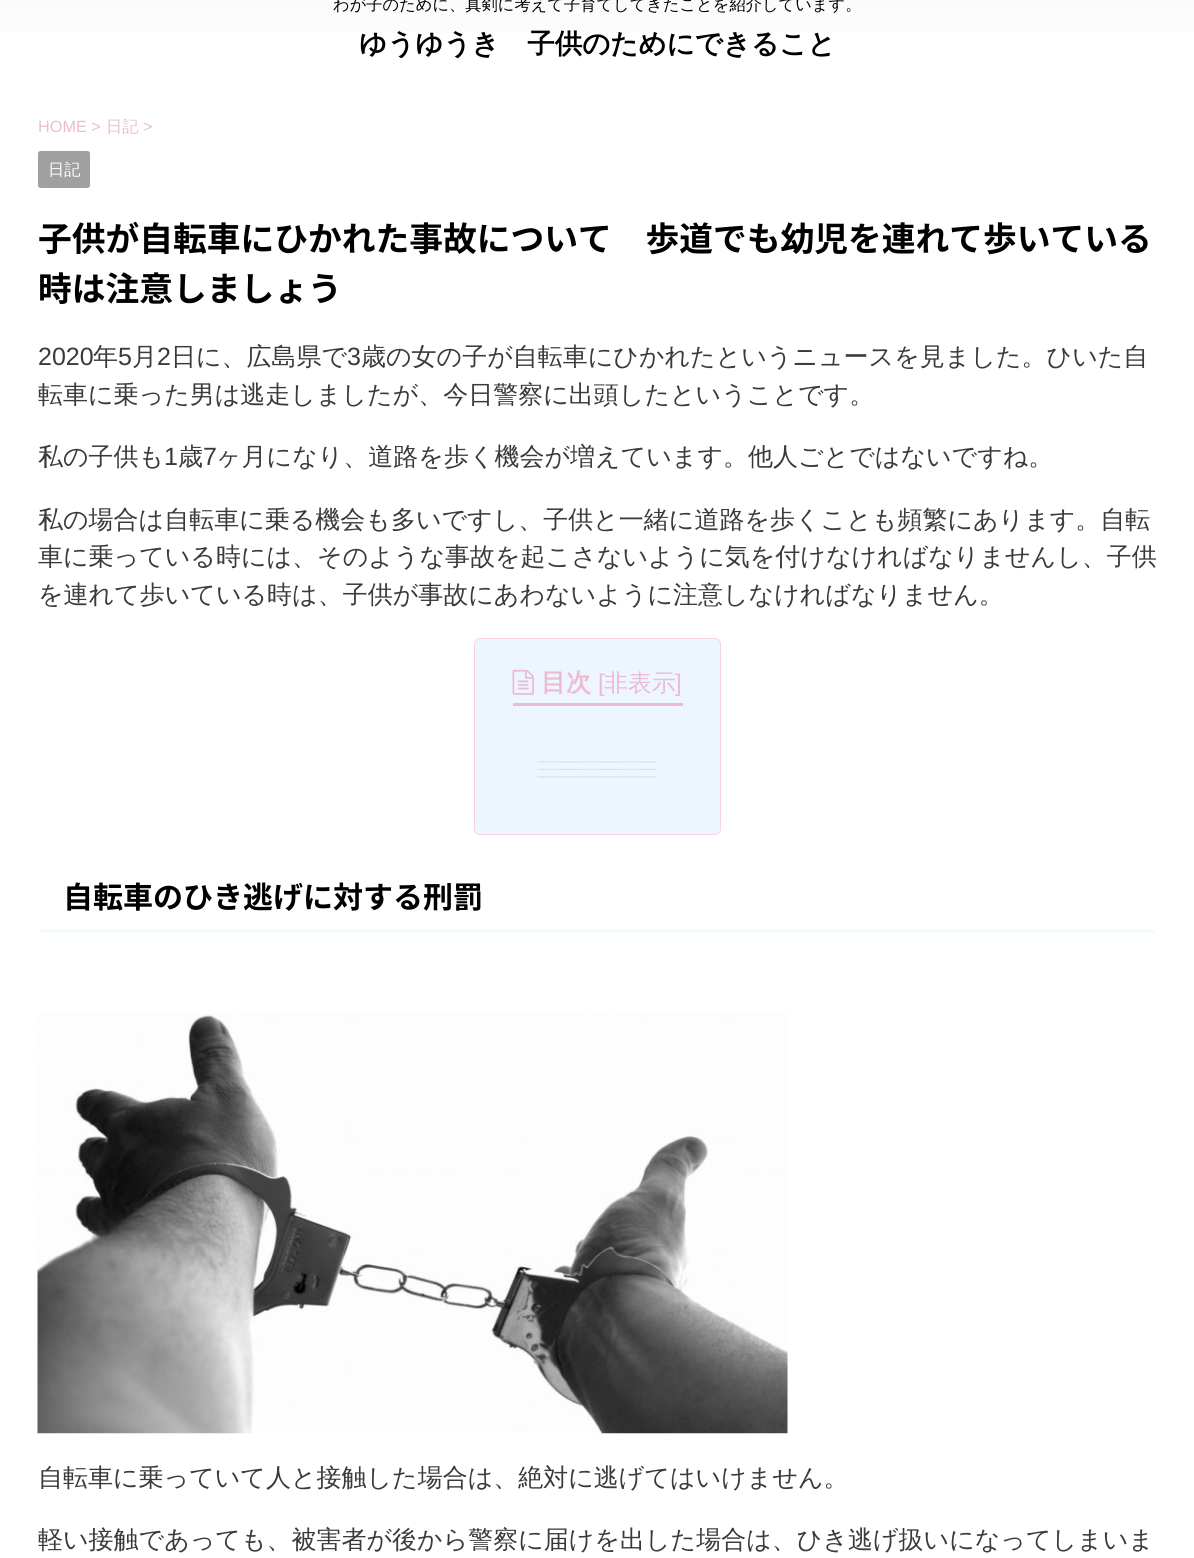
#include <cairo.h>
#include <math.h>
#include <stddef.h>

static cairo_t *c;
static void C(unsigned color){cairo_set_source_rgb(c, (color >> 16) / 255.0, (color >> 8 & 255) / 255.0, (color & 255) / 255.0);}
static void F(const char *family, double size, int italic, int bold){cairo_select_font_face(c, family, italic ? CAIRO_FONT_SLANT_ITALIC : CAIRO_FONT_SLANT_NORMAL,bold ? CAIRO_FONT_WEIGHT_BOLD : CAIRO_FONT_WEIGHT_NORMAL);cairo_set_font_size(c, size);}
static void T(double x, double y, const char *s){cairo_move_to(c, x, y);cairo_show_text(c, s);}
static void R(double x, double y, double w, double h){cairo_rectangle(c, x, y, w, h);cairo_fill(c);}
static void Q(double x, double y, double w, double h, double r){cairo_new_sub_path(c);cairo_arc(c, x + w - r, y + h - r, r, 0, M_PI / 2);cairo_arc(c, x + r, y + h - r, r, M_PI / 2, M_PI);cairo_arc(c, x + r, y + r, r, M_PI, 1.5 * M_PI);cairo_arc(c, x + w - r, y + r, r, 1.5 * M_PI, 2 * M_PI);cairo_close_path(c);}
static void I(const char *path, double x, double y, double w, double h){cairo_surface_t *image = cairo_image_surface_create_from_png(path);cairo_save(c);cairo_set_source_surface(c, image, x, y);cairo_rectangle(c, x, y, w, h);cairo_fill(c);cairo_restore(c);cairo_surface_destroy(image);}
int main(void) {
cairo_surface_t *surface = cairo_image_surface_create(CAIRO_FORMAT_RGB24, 1194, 1558);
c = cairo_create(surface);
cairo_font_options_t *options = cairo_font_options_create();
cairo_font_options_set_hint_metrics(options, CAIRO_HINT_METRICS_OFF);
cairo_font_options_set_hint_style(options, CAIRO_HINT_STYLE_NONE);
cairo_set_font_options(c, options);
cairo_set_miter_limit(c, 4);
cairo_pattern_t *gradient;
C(0xffffff);
cairo_paint(c);
gradient = cairo_pattern_create_linear(598,-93,598,90);
cairo_pattern_add_color_stop_rgba(gradient,0,0.969,0.969,0.969,1);
cairo_pattern_add_color_stop_rgba(gradient,1,1,1,1,1);
cairo_set_source(c,gradient);
cairo_pattern_destroy(gradient);
R(0,0,1194,33);
F("WenQuanYi Zen Hei Medium",16.25,0,0);
C(0x000000);
T(333,10,"わが子のために、真剣に考えて子育てしてきたことを紹介しています。");
F("WenQuanYi Zen Hei",27.5,0,1);
T(359,53,"ゆうゆうき　子供のためにできること");
F("Liberation Sans",16.25,0,0);
C(0xedbbcf);
T(38,132,"HOME >");
F("WenQuanYi Zen Hei Medium",16.25,0,0);
T(106,132,"日記");
F("Liberation Sans",16.25,0,0);
T(143,132,">");
C(0xa0a0a0);
Q(38,151,52,37,2.5);
cairo_fill(c);
F("WenQuanYi Zen Hei Medium",16.25,0,0);
C(0xffffff);
T(48,175,"日記");
F("Noto Sans JP",33.75,0,1);
C(0x000000);
T(38,251,"子供が自転車にひかれた事故について　歩道でも幼児を連れて歩いている");
T(38,301,"時は注意しましょう");
F("Liberation Sans",25,0,0);
C(0x3a3a3a);
T(38,365,"2020");
F("WenQuanYi Zen Hei Medium",25,0,0);
T(93,365,"年");
F("Liberation Sans",25,0,0);
T(118,365,"5");
F("WenQuanYi Zen Hei Medium",25,0,0);
T(132,365,"月");
F("Liberation Sans",25,0,0);
T(157,365,"2");
F("WenQuanYi Zen Hei Medium",25,0,0);
T(171,365,"日に、広島県で");
F("Liberation Sans",25,0,0);
T(347,365,"3");
F("WenQuanYi Zen Hei Medium",25,0,0);
T(361,365,"歳の女の子が自転車にひかれたというニュースを見ました。ひいた自");
T(38,403,"転車に乗った男は逃走しましたが、今日警察に出頭したということです。");
T(38,465,"私の子供も");
F("Liberation Sans",25,0,0);
T(164,465,"1");
F("WenQuanYi Zen Hei Medium",25,0,0);
T(178,465,"歳");
F("Liberation Sans",25,0,0);
T(203,465,"7");
F("WenQuanYi Zen Hei Medium",25,0,0);
T(216,465,"ヶ月になり、道路を歩く機会が増えています。他人ごとではないですね。");
T(38,528,"私の場合は自転車に乗る機会も多いですし、子供と一緒に道路を歩くことも頻繁にあります。自転");
T(38,565,"車に乗っている時には、そのような事故を起こさないように気を付けなければなりませんし、子供");
T(38,603,"を連れて歩いている時は、子供が事故にあわないように注意しなければなりません。");
C(0xedf6ff);
Q(474.5,638.5,246,196,5.5);
cairo_fill_preserve(c);
C(0xf8d2e3);
cairo_set_line_width(c,1);
cairo_stroke(c);
C(0xedbbcf);
R(513,703,170,3);
I("1.png",512,669,22,26);
F("WenQuanYi Zen Hei",25,0,1);
T(541,691,"目次");
F("Liberation Sans",24,0,0);
T(598,691,"[");
F("WenQuanYi Zen Hei Medium",24,0,0);
T(604,691,"非表示");
F("Liberation Sans",24,0,0);
T(675,691,"]");
cairo_new_path(c);
cairo_move_to(c,537.5,762);
cairo_line_to(c,657.5,762);
C(0xcccccc);
cairo_set_line_width(c,1.2);
cairo_set_dash(c,(double[]){1.25,1.25},2,0);
cairo_stroke(c);
cairo_new_path(c);
cairo_move_to(c,537.5,769.5);
cairo_line_to(c,657.5,769.5);
cairo_stroke(c);
cairo_new_path(c);
cairo_move_to(c,537.5,777);
cairo_line_to(c,657.5,777);
cairo_stroke(c);
C(0xf4fbff);
R(41,929,1114,4);
F("Noto Sans JP",30,0,1);
C(0x000000);
T(63,908,"自転車のひき逃げに対する刑罰");
I("2.png",37,1013,751,421);
F("WenQuanYi Zen Hei Medium",25,0,0);
C(0x3a3a3a);
T(38,1486,"自転車に乗っていて人と接触した場合は、絶対に逃げてはいけません。");
T(38,1548,"軽い接触であっても、被害者が後から警察に届けを出した場合は、ひき逃げ扱いになってしまいま");
cairo_surface_write_to_png(surface, "o.png");
cairo_font_options_destroy(options);
cairo_destroy(c);
cairo_surface_destroy(surface);
return 0;
}
